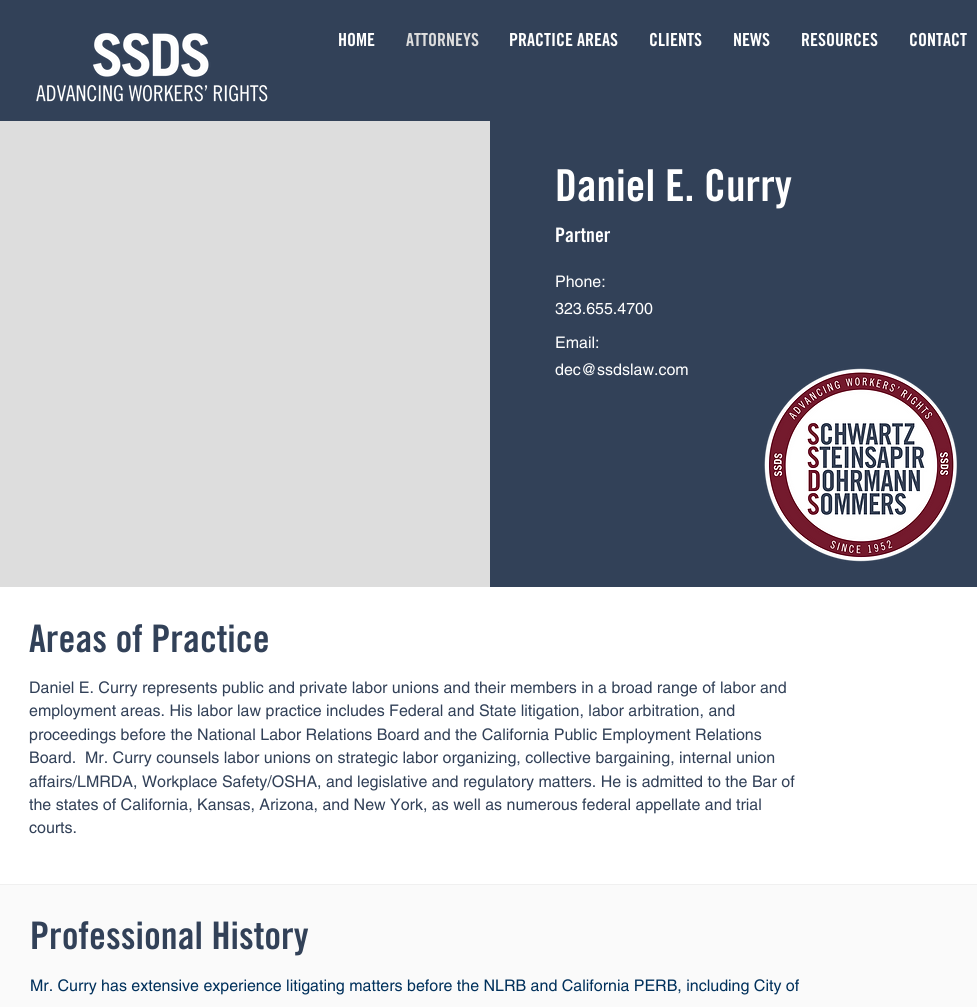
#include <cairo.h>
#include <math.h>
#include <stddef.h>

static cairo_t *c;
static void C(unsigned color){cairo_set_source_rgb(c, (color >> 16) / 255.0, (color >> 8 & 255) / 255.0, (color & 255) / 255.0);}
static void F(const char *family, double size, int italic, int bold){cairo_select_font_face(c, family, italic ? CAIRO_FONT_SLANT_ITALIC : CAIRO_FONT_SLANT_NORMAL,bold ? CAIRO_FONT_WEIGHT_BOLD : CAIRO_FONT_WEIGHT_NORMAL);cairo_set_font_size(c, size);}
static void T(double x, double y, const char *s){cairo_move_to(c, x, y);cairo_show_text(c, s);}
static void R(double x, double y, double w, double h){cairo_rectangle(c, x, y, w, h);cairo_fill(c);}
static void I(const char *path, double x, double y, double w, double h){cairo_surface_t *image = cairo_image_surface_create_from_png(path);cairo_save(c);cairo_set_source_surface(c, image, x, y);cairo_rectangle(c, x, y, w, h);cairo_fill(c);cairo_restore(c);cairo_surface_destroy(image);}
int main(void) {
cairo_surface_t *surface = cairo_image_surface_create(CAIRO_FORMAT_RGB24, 977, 1007);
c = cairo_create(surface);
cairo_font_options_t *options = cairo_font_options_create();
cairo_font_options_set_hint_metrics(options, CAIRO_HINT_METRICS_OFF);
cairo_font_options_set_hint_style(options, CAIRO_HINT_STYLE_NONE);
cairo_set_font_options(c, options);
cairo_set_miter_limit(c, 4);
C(0xffffff);
cairo_paint(c);
C(0x324158);
R(0,0,977,121);
I("1.png",36,33,232,69);
F("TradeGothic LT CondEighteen",18,0,1);
C(0xffffff);
T(338,46,"HOME");
C(0xdddddd);
T(406,46,"ATTORNEYS");
C(0xffffff);
T(509,46,"PRACTICE AREAS");
T(649,46,"CLIENTS");
T(733,46,"NEWS");
T(801,46,"RESOURCES");
T(909,46,"CONTACT");
C(0xdddddd);
R(0,121,490,466);
C(0x324158);
R(490,121,487,466);
F("TradeGothic LT CondEighteen",44,0,1);
C(0xffffff);
T(555,201,"Daniel E. Curry");
F("TradeGothic LT CondEighteen",20,0,1);
T(555,242,"Partner");
F("helvetica",16,0,0);
T(555,287,"Phone:");
T(555,314,"323.655.4700");
T(555,348,"Email:");
T(555,375,"dec@ssdslaw.com");
I("2.png",764,368,193,194);
F("TradeGothic LT CondEighteen",38,0,1);
C(0x324158);
T(29,652,"Areas of Practice");
F("helvetica",16,0,0);
T(29,693,"Daniel E. Curry represents public and private labor unions and their members in a broad range of labor and");
T(29,716,"employment areas. His labor law practice includes Federal and State litigation, labor arbitration, and");
T(29,740,"proceedings before the National Labor Relations Board and the California Public Employment Relations");
T(29,763,"Board.  Mr. Curry counsels labor unions on strategic labor organizing, collective bargaining, internal union");
T(29,787,"affairs/LMRDA, Workplace Safety/OSHA, and legislative and regulatory matters. He is admitted to the Bar of");
T(29,810,"the states of California, Kansas, Arizona, and New York, as well as numerous federal appellate and trial");
T(29,833,"courts.");
C(0xf0f0f0);
R(0,884,977,1);
C(0xfafafa);
R(0,885,977,122);
F("TradeGothic LT CondEighteen",38,0,1);
C(0x324158);
T(30,949,"Professional History");
F("helvetica",16,0,0);
C(0x00305b);
T(30,991,"Mr. Curry has extensive experience litigating matters before the NLRB and California PERB, including City of");
cairo_surface_write_to_png(surface, "o.png");
cairo_font_options_destroy(options);
cairo_destroy(c);
cairo_surface_destroy(surface);
return 0;
}
